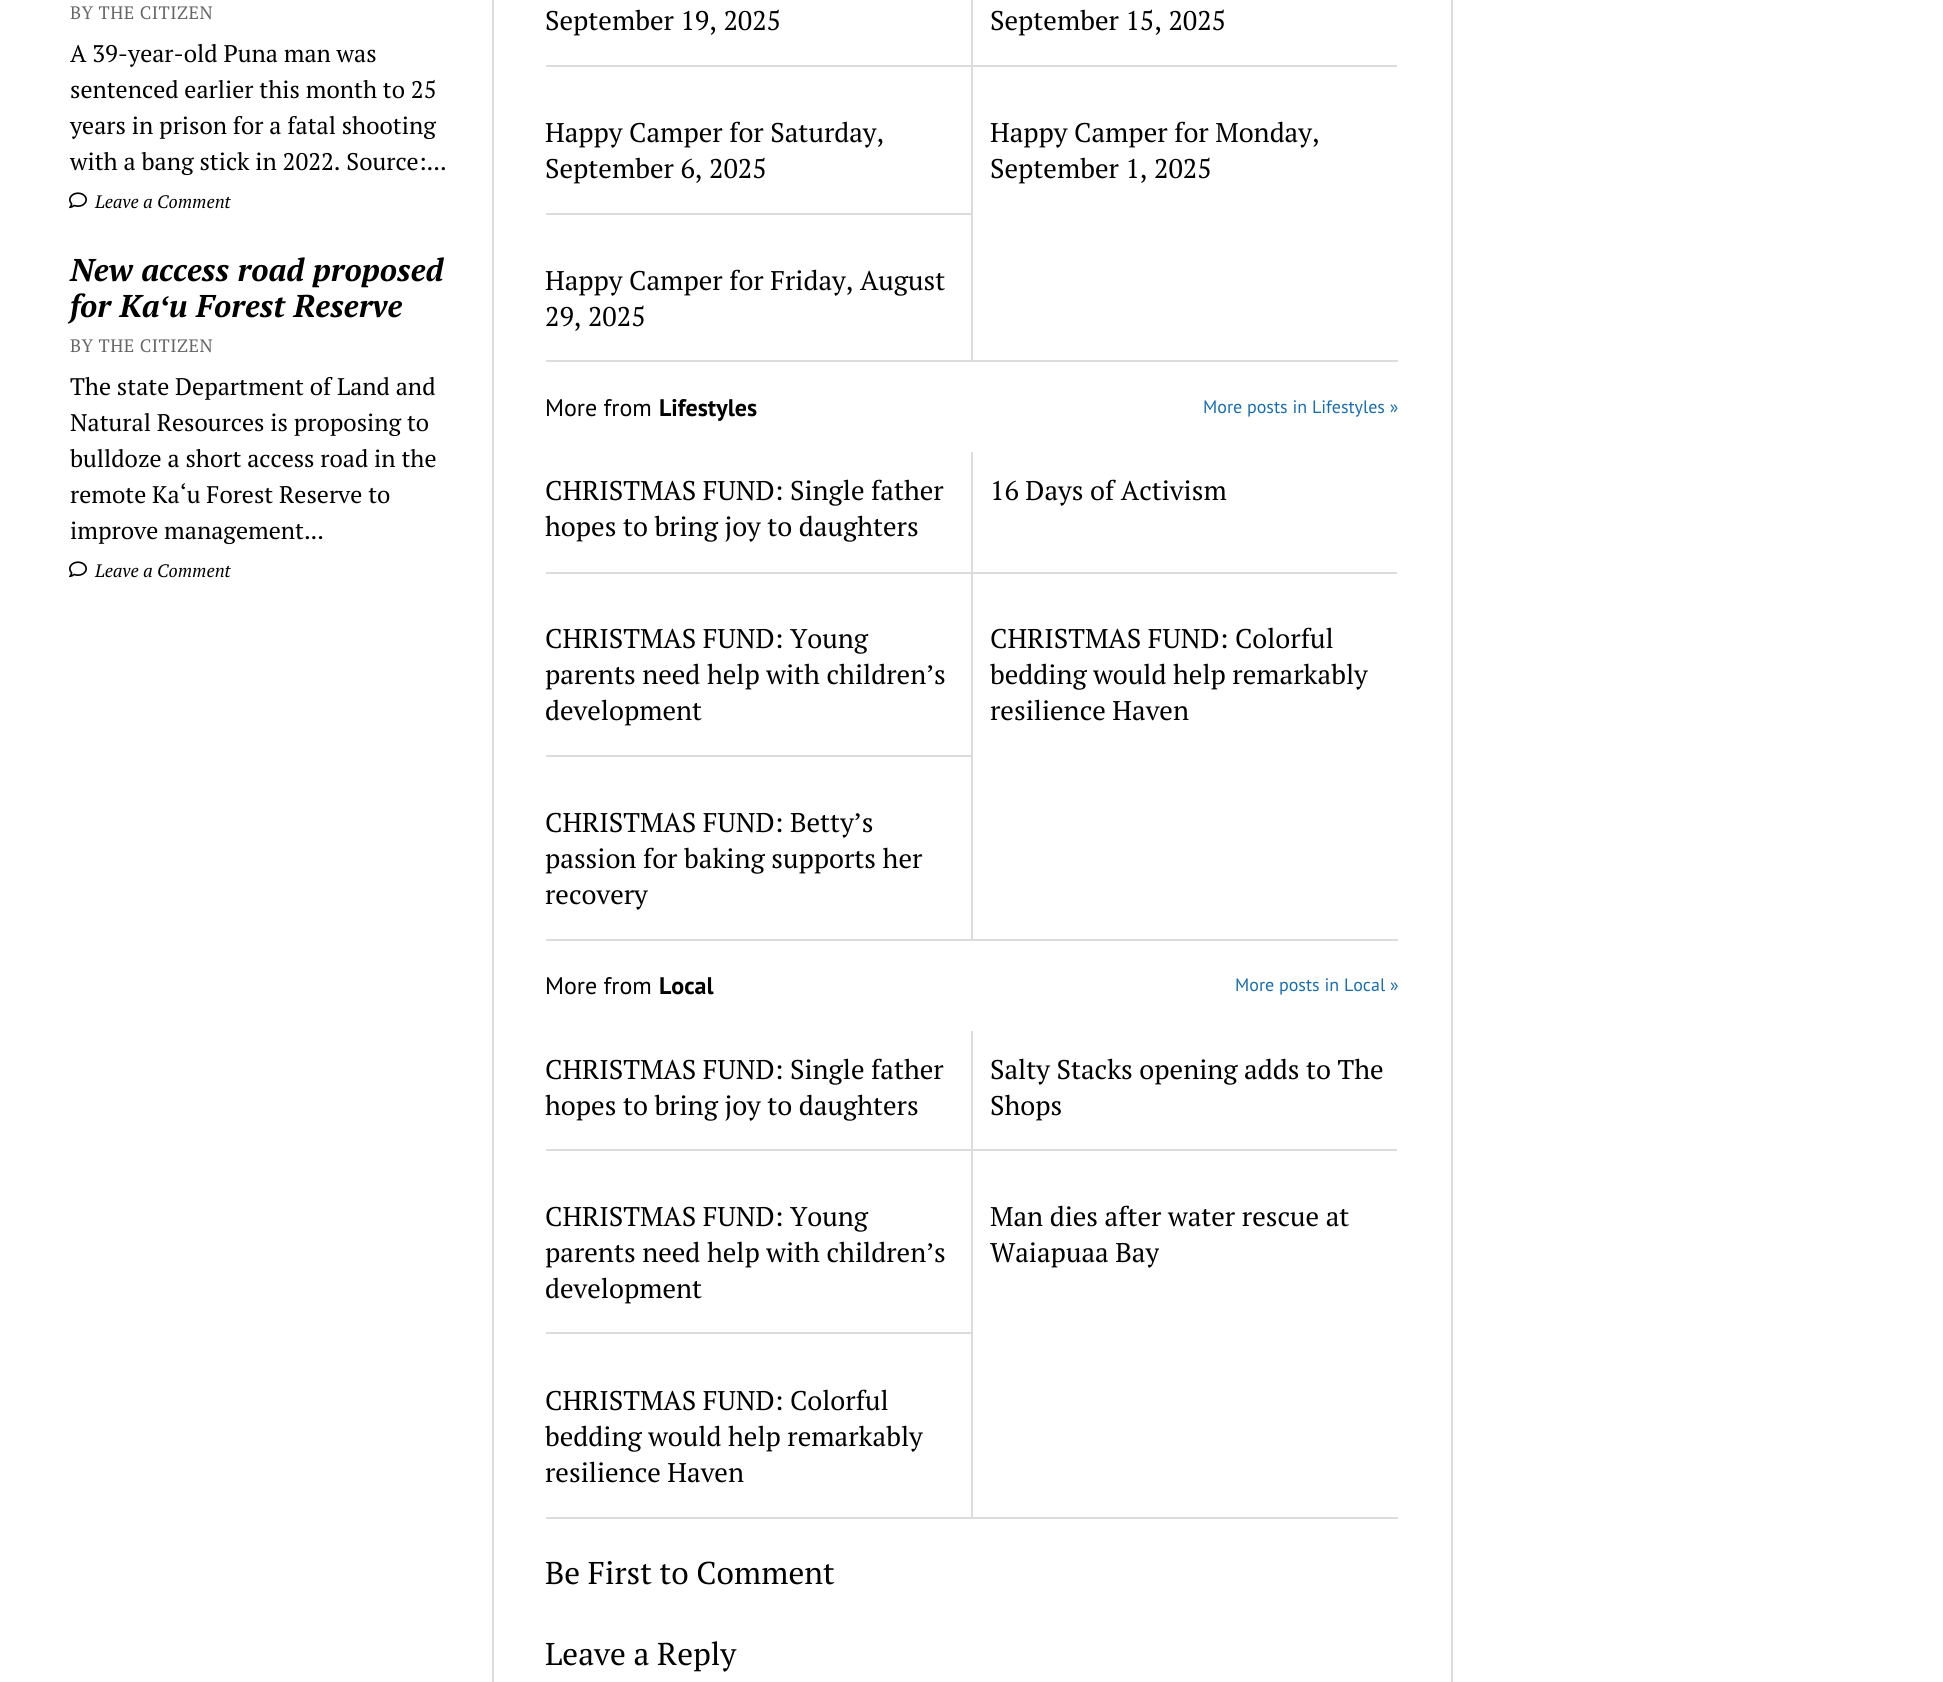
#include <cairo.h>
#include <math.h>
#include <stddef.h>

static cairo_t *c;
static void C(unsigned color){cairo_set_source_rgb(c, (color >> 16) / 255.0, (color >> 8 & 255) / 255.0, (color & 255) / 255.0);}
static void F(const char *family, double size, int italic, int bold){cairo_select_font_face(c, family, italic ? CAIRO_FONT_SLANT_ITALIC : CAIRO_FONT_SLANT_NORMAL,bold ? CAIRO_FONT_WEIGHT_BOLD : CAIRO_FONT_WEIGHT_NORMAL);cairo_set_font_size(c, size);}
static void T(double x, double y, const char *s){cairo_move_to(c, x, y);cairo_show_text(c, s);}
static void L(double x, double y, const char *s, double letter, double word){cairo_move_to(c, x, y);while (*s) {char ch[5] = {0};int n = 0;do ch[n++] = *s++; while ((*s & 0xC0) == 0x80);cairo_show_text(c, ch);cairo_rel_move_to(c, letter + word * (*ch == ' '), 0);}}
static void R(double x, double y, double w, double h){cairo_rectangle(c, x, y, w, h);cairo_fill(c);}
static void I(const char *path, double x, double y, double w, double h){cairo_surface_t *image = cairo_image_surface_create_from_png(path);cairo_save(c);cairo_set_source_surface(c, image, x, y);cairo_rectangle(c, x, y, w, h);cairo_fill(c);cairo_restore(c);cairo_surface_destroy(image);}
int main(void) {
cairo_surface_t *surface = cairo_image_surface_create(CAIRO_FORMAT_RGB24, 1943, 1682);
c = cairo_create(surface);
cairo_font_options_t *options = cairo_font_options_create();
cairo_font_options_set_hint_metrics(options, CAIRO_HINT_METRICS_OFF);
cairo_font_options_set_hint_style(options, CAIRO_HINT_STYLE_NONE);
cairo_set_font_options(c, options);
cairo_set_miter_limit(c, 4);
C(0xffffff);
cairo_paint(c);
C(0xdcdcdc);
R(492,0,2,1682);
R(1451,0,2,1682);
F("PT Serif",18,0,0);
C(0x666666);
L(70,19,"BY THE CITIZEN",.5,0);
F("PT Serif",24,0,0);
C(0x000000);
T(70,62,"A 39-year-old Puna man was");
T(70,98,"sentenced earlier this month to 25");
T(70,134,"years in prison for a fatal shooting");
T(70,170,"with a bang stick in 2022. Source:...");
I("1.png",69,192,18,17);
F("PT Serif",18,1,0);
T(95,208,"Leave a Comment");
F("PT Serif",31.5,1,1);
T(70,281,"New access road proposed");
T(70,317,"for Ka");
F("Liberation Serif",31.5,1,1);
T(159,317,"ʻ");
F("PT Serif",31.5,1,1);
T(169,317,"u Forest Reserve");
F("PT Serif",18,0,0);
C(0x666666);
L(70,352,"BY THE CITIZEN",.5,0);
F("PT Serif",24,0,0);
C(0x000000);
T(70,395,"The state Department of Land and");
T(70,431,"Natural Resources is proposing to");
T(70,467,"bulldoze a short access road in the");
T(70,503,"remote Ka‘u Forest Reserve to");
T(70,539,"improve management...");
I("1.png",69,561,18,17);
F("PT Serif",18,1,0);
T(95,577,"Leave a Comment");
C(0xdcdcdc);
R(546,360,852,2);
R(971,0,2,65);
F("PT Serif",27,0,0);
C(0x000000);
T(545,30,"September 19, 2025");
T(990,30,"September 15, 2025");
C(0xdcdcdc);
R(546,65,426,2);
R(971,65,2,148);
C(0x000000);
T(545,142,"Happy Camper for Saturday,");
T(545,178,"September 6, 2025");
C(0xdcdcdc);
R(971,65,426,2);
C(0x000000);
T(990,142,"Happy Camper for Monday,");
T(990,178,"September 1, 2025");
C(0xdcdcdc);
R(546,213,426,2);
R(971,213,2,147);
C(0x000000);
T(545,290,"Happy Camper for Friday, August");
T(545,326,"29, 2025");
C(0xdcdcdc);
R(546,939,852,2);
F("PT Sans",24,0,0);
C(0x000000);
T(545,416,"More from");
F("PT Sans",24,0,1);
T(659,416,"Lifestyles");
F("PT Sans",18,0,0);
C(0x176db3);
T(1203,413,"More posts in Lifestyles »");
C(0xdcdcdc);
R(971,452,2,120);
F("PT Serif",27,0,0);
C(0x000000);
T(545,500,"CHRISTMAS FUND: Single father");
T(545,536,"hopes to bring joy to daughters");
T(990,500,"16 Days of Activism");
C(0xdcdcdc);
R(546,572,426,2);
R(971,572,2,183);
C(0x000000);
T(545,648,"CHRISTMAS FUND: Young");
T(545,684,"parents need help with children’s");
T(545,720,"development");
C(0xdcdcdc);
R(971,572,426,2);
C(0x000000);
T(990,648,"CHRISTMAS FUND: Colorful");
T(990,684,"bedding would help remarkably");
T(990,720,"resilience Haven");
C(0xdcdcdc);
R(546,755,426,2);
R(971,755,2,184);
C(0x000000);
T(545,832,"CHRISTMAS FUND: Betty’s");
T(545,868,"passion for baking supports her");
T(545,904,"recovery");
C(0xdcdcdc);
R(546,1517,852,2);
F("PT Sans",24,0,0);
C(0x000000);
T(545,994,"More from");
F("PT Sans",24,0,1);
T(659,994,"Local");
F("PT Sans",18,0,0);
C(0x176db3);
T(1235,991,"More posts in Local »");
C(0xdcdcdc);
R(971,1031,2,118);
F("PT Serif",27,0,0);
C(0x000000);
T(545,1079,"CHRISTMAS FUND: Single father");
T(545,1115,"hopes to bring joy to daughters");
T(990,1079,"Salty Stacks opening adds to The");
T(990,1115,"Shops");
C(0xdcdcdc);
R(546,1149,426,2);
R(971,1149,2,183);
C(0x000000);
T(545,1226,"CHRISTMAS FUND: Young");
T(545,1262,"parents need help with children’s");
T(545,1298,"development");
C(0xdcdcdc);
R(971,1149,426,2);
C(0x000000);
T(990,1226,"Man dies after water rescue at");
T(990,1262,"Waiapuaa Bay");
C(0xdcdcdc);
R(546,1332,426,2);
R(971,1332,2,185);
C(0x000000);
T(545,1410,"CHRISTMAS FUND: Colorful");
T(545,1446,"bedding would help remarkably");
T(545,1482,"resilience Haven");
F("PT Serif",31.5,0,0);
T(545,1584,"Be First to Comment");
T(545,1665,"Leave a Reply");
cairo_surface_write_to_png(surface, "o.png");
cairo_font_options_destroy(options);
cairo_destroy(c);
cairo_surface_destroy(surface);
return 0;
}
